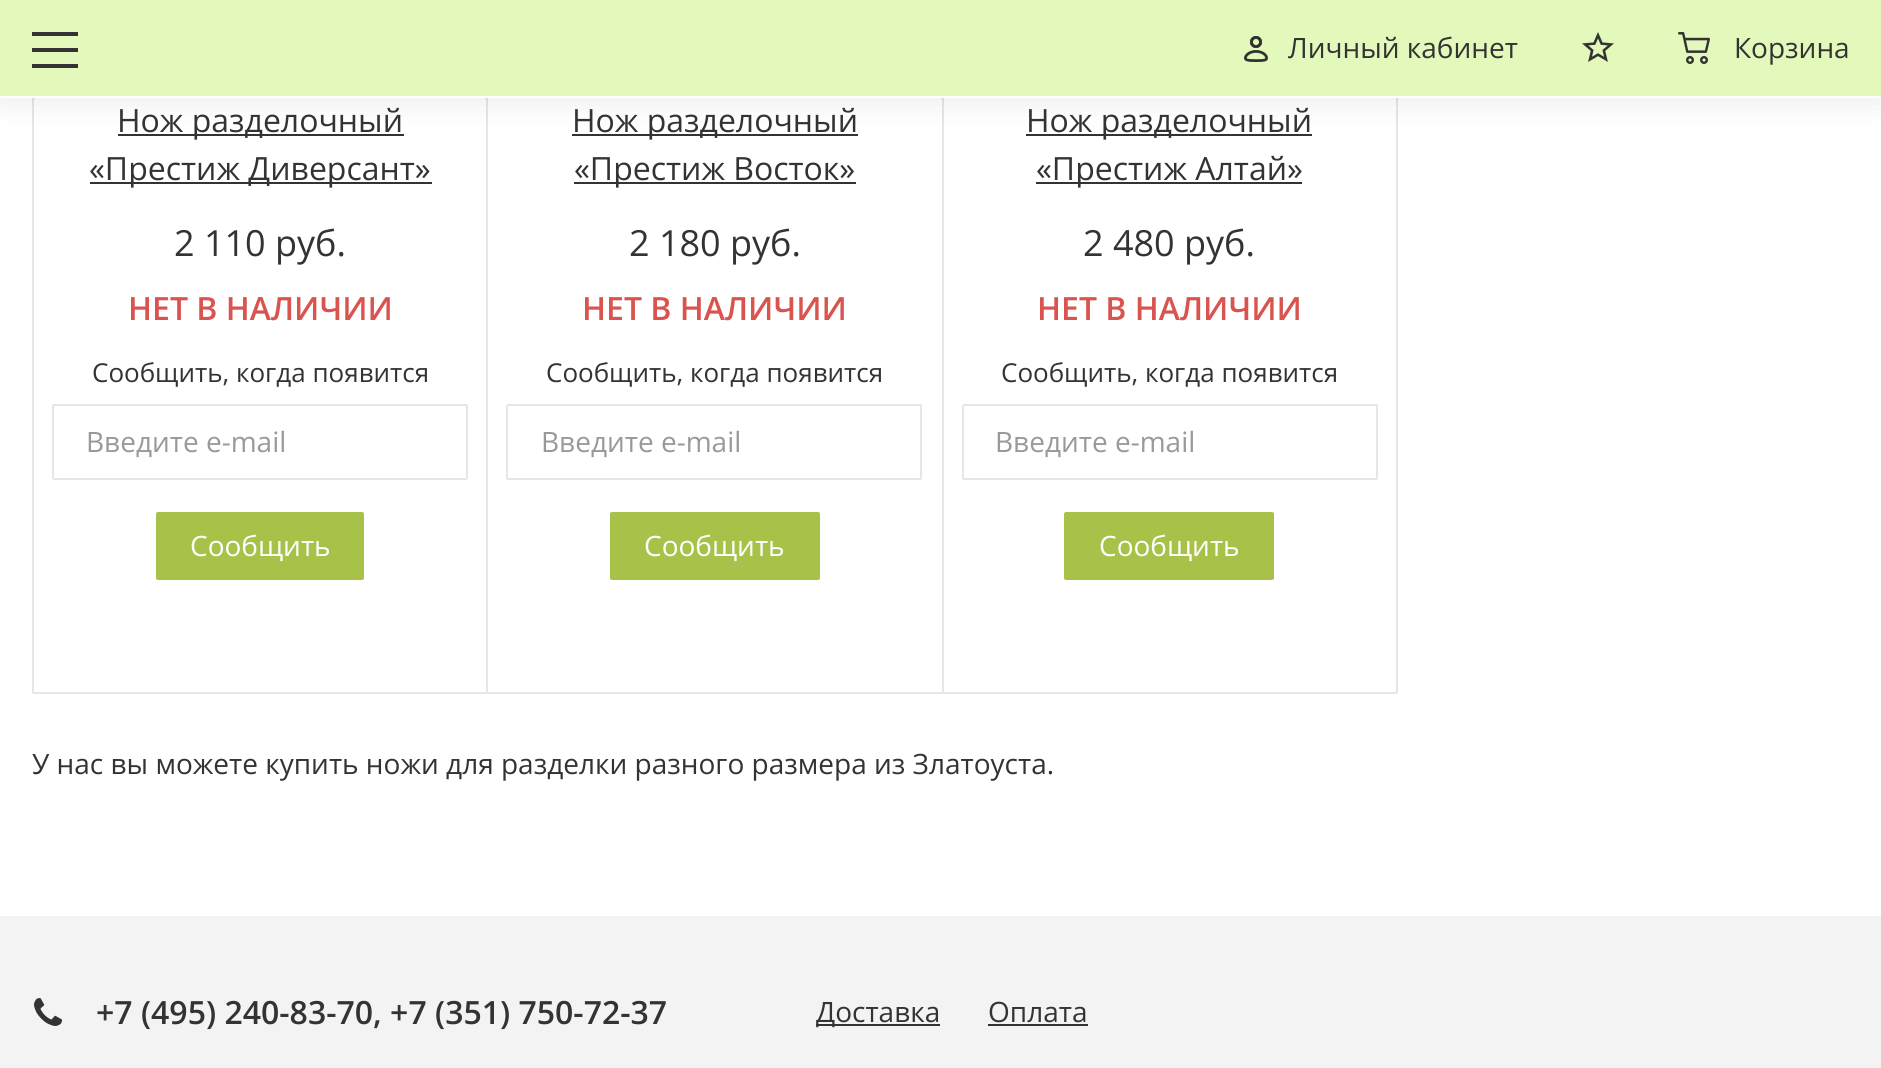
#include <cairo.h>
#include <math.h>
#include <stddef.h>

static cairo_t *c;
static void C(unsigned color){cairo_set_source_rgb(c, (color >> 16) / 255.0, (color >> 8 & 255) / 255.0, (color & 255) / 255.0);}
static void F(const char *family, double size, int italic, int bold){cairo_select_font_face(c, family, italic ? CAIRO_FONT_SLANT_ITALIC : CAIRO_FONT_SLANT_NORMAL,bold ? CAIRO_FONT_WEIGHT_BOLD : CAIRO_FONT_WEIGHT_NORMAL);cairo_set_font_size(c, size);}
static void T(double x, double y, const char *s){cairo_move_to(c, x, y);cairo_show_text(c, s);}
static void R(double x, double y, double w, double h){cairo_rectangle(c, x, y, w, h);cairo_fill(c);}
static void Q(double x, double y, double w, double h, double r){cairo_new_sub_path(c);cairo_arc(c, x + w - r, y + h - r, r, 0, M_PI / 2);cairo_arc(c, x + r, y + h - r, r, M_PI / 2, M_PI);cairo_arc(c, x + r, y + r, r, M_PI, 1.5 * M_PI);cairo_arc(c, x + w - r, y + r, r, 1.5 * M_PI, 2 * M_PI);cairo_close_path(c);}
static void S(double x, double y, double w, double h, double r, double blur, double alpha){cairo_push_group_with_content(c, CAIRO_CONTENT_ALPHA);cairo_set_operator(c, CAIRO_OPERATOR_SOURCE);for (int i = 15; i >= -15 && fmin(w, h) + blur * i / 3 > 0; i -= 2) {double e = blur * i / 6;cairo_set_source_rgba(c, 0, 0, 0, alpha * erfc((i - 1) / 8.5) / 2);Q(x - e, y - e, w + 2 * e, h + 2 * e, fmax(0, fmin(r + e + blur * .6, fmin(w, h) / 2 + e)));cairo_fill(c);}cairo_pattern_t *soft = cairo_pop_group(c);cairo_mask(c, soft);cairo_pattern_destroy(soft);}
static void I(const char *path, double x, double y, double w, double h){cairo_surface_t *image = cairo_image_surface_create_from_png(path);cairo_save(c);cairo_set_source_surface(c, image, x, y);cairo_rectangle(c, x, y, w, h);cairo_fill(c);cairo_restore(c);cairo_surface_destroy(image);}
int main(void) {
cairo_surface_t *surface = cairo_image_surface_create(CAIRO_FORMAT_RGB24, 1881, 1068);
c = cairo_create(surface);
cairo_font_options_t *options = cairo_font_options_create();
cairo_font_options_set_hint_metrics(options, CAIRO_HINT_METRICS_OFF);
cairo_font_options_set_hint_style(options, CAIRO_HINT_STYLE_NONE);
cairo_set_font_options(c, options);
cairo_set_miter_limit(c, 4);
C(0xffffff);
cairo_paint(c);
Q(33,-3,454,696,1);
C(0xe6e6e6);
cairo_stroke(c);
C(0x333333);
R(118,134,286,2);
C(0xffffff);
Q(487,-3,456,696,1);
cairo_fill_preserve(c);
C(0xe6e6e6);
cairo_stroke(c);
C(0x333333);
R(572,134,286,2);
C(0xffffff);
Q(943,-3,454,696,1);
cairo_fill_preserve(c);
C(0xe6e6e6);
cairo_stroke(c);
C(0x333333);
R(1026,134,286,2);
C(0x000000);
S(0,0,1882,98,0,16,.1);
C(0xe2f9bb);
R(0,0,1881,96);
C(0xffffff);
R(0,96,1881,2);
C(0x333333);
R(32,48,46,4);
R(32,32,46,4);
R(32,64,46,4);
I("1.png",1244,36,24,26);
F("Open Sans",28,0,0);
T(1288,58,"Личный кабинет");
I("2.png",1582,32,32,30);
I("3.png",1678,32,32,32);
T(1734,58,"Корзина");
F("Open Sans",32,0,0);
T(117,132,"Нож разделочный");
R(90,182,342,2);
T(89,180,"«Престиж Диверсант»");
F("Open Sans",36,0,0);
T(174,256,"2 110 руб.");
F("Open Sans SemiBold",32,0,0);
C(0xd9534f);
T(128,320,"НЕТ В НАЛИЧИИ");
F("Open Sans",26,0,0);
C(0x333333);
T(92,382,"Сообщить, когда появится");
Q(53,405,414,74,1);
C(0xe6e6e6);
cairo_stroke(c);
F("Open Sans",28,0,0);
C(0x999999);
T(86,452,"Введите e-mail");
C(0xa8c149);
Q(157,513,206,66,1);
cairo_fill_preserve(c);
cairo_stroke(c);
C(0xffffff);
T(190,556,"Сообщить");
F("Open Sans",32,0,0);
C(0x333333);
T(572,132,"Нож разделочный");
R(574,182,282,2);
T(574,180,"«Престиж Восток»");
F("Open Sans",36,0,0);
T(629,256,"2 180 руб.");
F("Open Sans SemiBold",32,0,0);
C(0xd9534f);
T(582,320,"НЕТ В НАЛИЧИИ");
F("Open Sans",26,0,0);
C(0x333333);
T(546,382,"Сообщить, когда появится");
Q(507,405,414,74,1);
C(0xe6e6e6);
cairo_stroke(c);
F("Open Sans",28,0,0);
C(0x999999);
T(541,452,"Введите e-mail");
C(0xa8c149);
Q(611,513,208,66,1);
cairo_fill_preserve(c);
cairo_stroke(c);
C(0xffffff);
T(644,556,"Сообщить");
F("Open Sans",32,0,0);
C(0x333333);
T(1026,132,"Нож разделочный");
R(1036,182,266,2);
T(1036,180,"«Престиж Алтай»");
F("Open Sans",36,0,0);
T(1083,256,"2 480 руб.");
F("Open Sans SemiBold",32,0,0);
C(0xd9534f);
T(1037,320,"НЕТ В НАЛИЧИИ");
F("Open Sans",26,0,0);
C(0x333333);
T(1001,382,"Сообщить, когда появится");
Q(963,405,414,74,1);
C(0xe6e6e6);
cairo_stroke(c);
F("Open Sans",28,0,0);
C(0x999999);
T(995,452,"Введите e-mail");
C(0xa8c149);
Q(1065,513,208,66,1);
cairo_fill_preserve(c);
cairo_stroke(c);
C(0xffffff);
T(1099,556,"Сообщить");
C(0x333333);
T(32,774,"У нас вы можете купить ножи для разделки разного размера из Златоуста.");
C(0xf3f3f3);
R(0,916,1881,152);
I("4.png",34,998,28,28);
F("Open Sans SemiBold",32,0,0);
C(0x333333);
T(96,1024,"+7 (495) 240-83-70, +7 (351) 750-72-37");
R(816,1024,124,2);
F("Open Sans",28,0,0);
T(816,1022,"Доставка");
T(988,1022,"Оплата");
R(988,1024,100,2);
cairo_surface_write_to_png(surface, "o.png");
cairo_font_options_destroy(options);
cairo_destroy(c);
cairo_surface_destroy(surface);
return 0;
}
